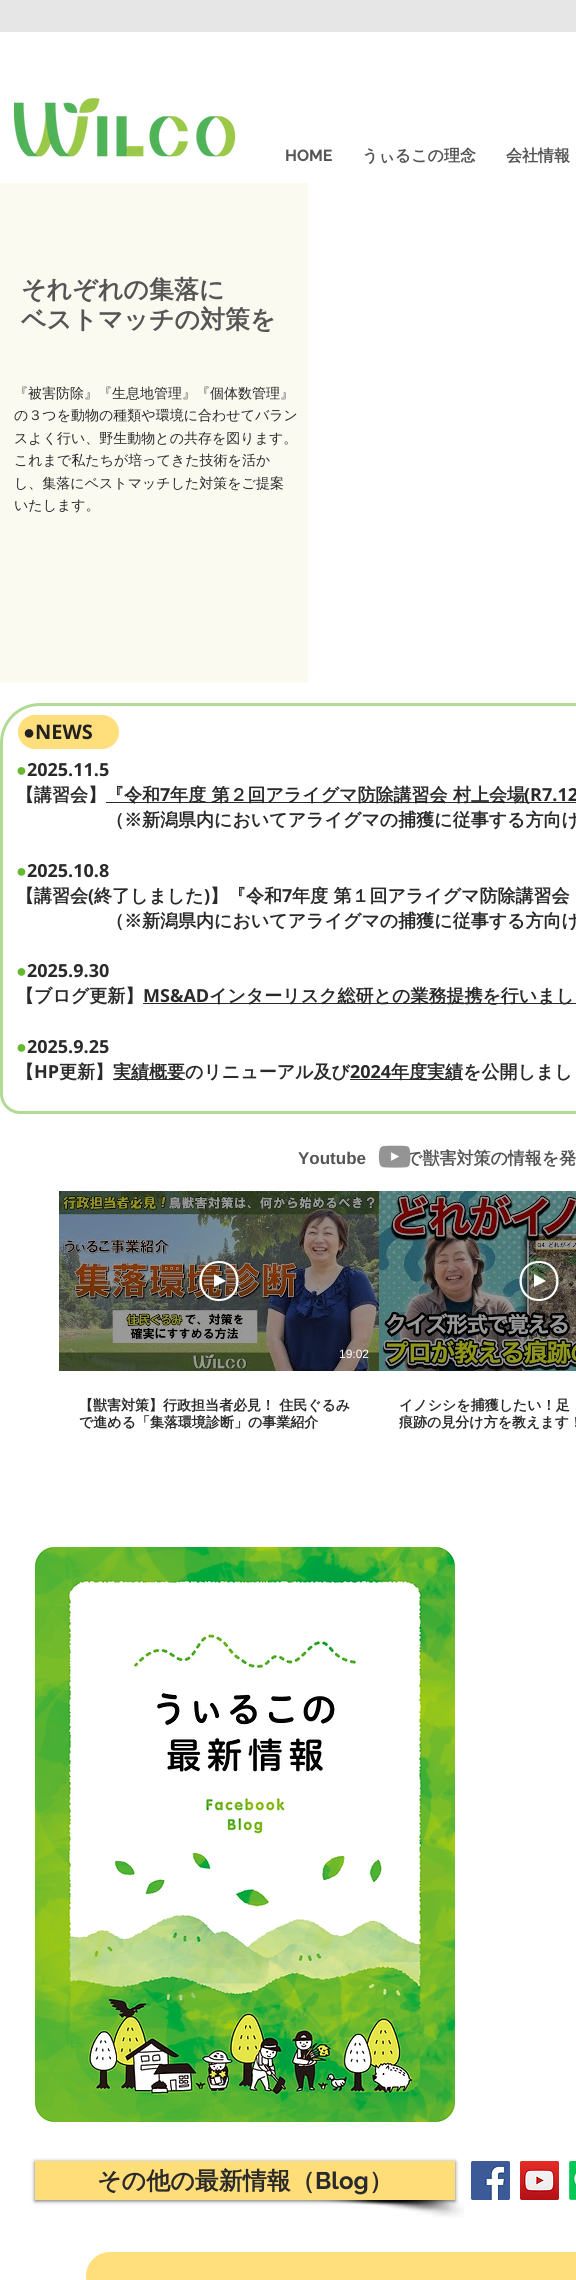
#include <cairo.h>
#include <math.h>
#include <stddef.h>

static cairo_t *c;
static void C(unsigned color){cairo_set_source_rgb(c, (color >> 16) / 255.0, (color >> 8 & 255) / 255.0, (color & 255) / 255.0);}
static void F(const char *family, double size, int italic, int bold){cairo_select_font_face(c, family, italic ? CAIRO_FONT_SLANT_ITALIC : CAIRO_FONT_SLANT_NORMAL,bold ? CAIRO_FONT_WEIGHT_BOLD : CAIRO_FONT_WEIGHT_NORMAL);cairo_set_font_size(c, size);}
static void T(double x, double y, const char *s){cairo_move_to(c, x, y);cairo_show_text(c, s);}
static void R(double x, double y, double w, double h){cairo_rectangle(c, x, y, w, h);cairo_fill(c);}
static void Q(double x, double y, double w, double h, double r){cairo_new_sub_path(c);cairo_arc(c, x + w - r, y + h - r, r, 0, M_PI / 2);cairo_arc(c, x + r, y + h - r, r, M_PI / 2, M_PI);cairo_arc(c, x + r, y + r, r, M_PI, 1.5 * M_PI);cairo_arc(c, x + w - r, y + r, r, 1.5 * M_PI, 2 * M_PI);cairo_close_path(c);}
static void S(double x, double y, double w, double h, double r, double blur, double alpha){cairo_push_group_with_content(c, CAIRO_CONTENT_ALPHA);cairo_set_operator(c, CAIRO_OPERATOR_SOURCE);for (int i = 15; i >= -15 && fmin(w, h) + blur * i / 3 > 0; i -= 2) {double e = blur * i / 6;cairo_set_source_rgba(c, 0, 0, 0, alpha * erfc((i - 1) / 8.5) / 2);Q(x - e, y - e, w + 2 * e, h + 2 * e, fmax(0, fmin(r + e + blur * .6, fmin(w, h) / 2 + e)));cairo_fill(c);}cairo_pattern_t *soft = cairo_pop_group(c);cairo_mask(c, soft);cairo_pattern_destroy(soft);}
static void I(const char *path, double x, double y, double w, double h){cairo_surface_t *image = cairo_image_surface_create_from_png(path);cairo_save(c);cairo_set_source_surface(c, image, x, y);cairo_rectangle(c, x, y, w, h);cairo_fill(c);cairo_restore(c);cairo_surface_destroy(image);}
int main(void) {
cairo_surface_t *surface = cairo_image_surface_create(CAIRO_FORMAT_RGB24, 576, 2280);
c = cairo_create(surface);
cairo_font_options_t *options = cairo_font_options_create();
cairo_font_options_set_hint_metrics(options, CAIRO_HINT_METRICS_OFF);
cairo_font_options_set_hint_style(options, CAIRO_HINT_STYLE_NONE);
cairo_set_font_options(c, options);
cairo_set_miter_limit(c, 4);
C(0xffffff);
cairo_paint(c);
C(0xe6e6e6);
R(0,0,576,32);
I("1.png",14,98,222,59);
F("Raleway",16,0,1);
C(0x555555);
T(285,161,"HOME");
F("WenQuanYi Zen Hei",16,0,1);
T(362,161,"うぃるこの理念");
T(506,161,"会社情報");
C(0xfbfaf1);
R(0,183,308,500);
F("WenQuanYi Zen Hei",25,0,1);
C(0x555555);
T(21,298,"それぞれの集落に");
T(21,328,"ベストマッチの対策を");
F("WenQuanYi Zen Hei Medium",14,0,0);
C(0x2a2a2a);
T(14,398,"『被害防除』『生息地管理』『個体数管理』");
T(14,420,"の３つを動物の種類や環境に合わせてバラン");
T(14,443,"スよく行い、野生動物との共存を図ります。");
T(14,465,"これまで私たちが培ってきた技術を活か");
T(14,488,"し、集落にベストマッチした対策をご提案");
T(14,510,"いたします。");
cairo_new_path(c);
cairo_move_to(c,40,704.5);
cairo_line_to(c,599,704.5);
cairo_curve_to(c,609,704.5,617.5,713,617.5,723);
cairo_line_to(c,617.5,1074);
cairo_curve_to(c,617.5,1095.5,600.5,1112.5,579,1112.5);
cairo_line_to(c,20,1112.5);
cairo_curve_to(c,10,1112.5,1.5,1104,1.5,1094);
cairo_line_to(c,1.5,743);
cairo_curve_to(c,1.5,721.5,18.5,704.5,40,704.5);
cairo_close_path(c);
C(0xb0db95);
cairo_set_line_width(c,3);
cairo_stroke(c);
C(0xffde7c);
Q(18,715,101,34,17);
cairo_fill(c);
F("Liberation Sans",20,0,1);
C(0x212121);
T(23,739,"●");
F("Open Sans",20,0,1);
T(35,739,"NEWS");
F("Liberation Sans",18,0,1);
C(0x65b82f);
T(16,776,"●");
F("Open Sans",18,0,1);
C(0x2a2a2a);
T(27,776,"2025.11.5");
F("WenQuanYi Zen Hei",18,0,1);
T(16,801,"【講習会】");
R(106,802,470,1);
T(106,801,"『令和");
F("Open Sans",18,0,1);
T(160,801,"7");
F("WenQuanYi Zen Hei",18,0,1);
T(170,801,"年度 第２回アライグマ防除講習会 村上会場");
F("Open Sans",18,0,1);
T(524,801,"(R7.12");
F("WenQuanYi Zen Hei",18,0,1);
T(106,826,"（※新潟県内においてアライグマの捕獲に従事する方向け");
F("Liberation Sans",18,0,1);
C(0x65b82f);
T(16,877,"●");
F("Open Sans",18,0,1);
C(0x2a2a2a);
T(27,877,"2025.10.8");
F("WenQuanYi Zen Hei",18,0,1);
T(16,902,"【講習会");
F("Open Sans",18,0,1);
T(88,902,"(");
F("WenQuanYi Zen Hei",18,0,1);
T(94,902,"終了しました");
F("Open Sans",18,0,1);
T(204,902,")");
F("WenQuanYi Zen Hei",18,0,1);
T(210,902,"】『令和");
F("Open Sans",18,0,1);
T(282,902,"7");
F("WenQuanYi Zen Hei",18,0,1);
T(292,902,"年度 第１回アライグマ防除講習会");
T(106,927,"（※新潟県内においてアライグマの捕獲に従事する方向け");
F("Liberation Sans",18,0,1);
C(0x65b82f);
T(16,977,"●");
F("Open Sans",18,0,1);
C(0x2a2a2a);
T(27,977,"2025.9.30");
F("WenQuanYi Zen Hei",18,0,1);
T(16,1002,"【ブログ更新】");
F("Open Sans",18,0,1);
T(143,1002,"MS&AD");
R(143,1003,433,1);
F("WenQuanYi Zen Hei",18,0,1);
T(209,1002,"インターリスク総研との業務提携を行いまし");
F("Liberation Sans",18,0,1);
C(0x65b82f);
T(16,1053,"●");
F("Open Sans",18,0,1);
C(0x2a2a2a);
T(27,1053,"2025.9.25");
F("WenQuanYi Zen Hei",18,0,1);
T(16,1078,"【");
F("Open Sans",18,0,1);
T(34,1078,"HP");
F("WenQuanYi Zen Hei",18,0,1);
T(59,1078,"更新】");
R(113,1079,72,1);
T(113,1078,"実績概要のリニューアル及び");
R(350,1079,113,1);
F("Open Sans",18,0,1);
T(350,1078,"2024");
F("WenQuanYi Zen Hei",18,0,1);
T(391,1078,"年度実績を公開しまし");
F("WenQuanYi Zen Hei",17,0,1);
C(0x555555);
T(405,1164,"で獣害対策の情報を発");
I("2.png",378,1145,33,23);
F("Liberation Sans",17,0,1);
T(298,1164,"Youtube");
I("3.png",59,1191,320,180);
C(0xffffff);
cairo_new_path(c);
cairo_move_to(c,219,1299);
cairo_curve_to(c,242,1299,242,1263,219,1263);
cairo_curve_to(c,196,1263,196,1299,219,1299);
cairo_close_path(c);
cairo_move_to(c,219,1301);
cairo_curve_to(c,193,1301,193,1261,219,1261);
cairo_curve_to(c,245,1261,245,1301,219,1301);
cairo_close_path(c);
cairo_move_to(c,226,1281);
cairo_line_to(c,214,1274);
cairo_line_to(c,214,1287);
cairo_close_path(c);
cairo_fill(c);
F("Liberation Sans",12,0,0);
T(339,1358,"19:02");
F("WenQuanYi Zen Hei",14,0,1);
C(0x2a2a2a);
T(79,1410,"【獣害対策】行政担当者必見！ 住民ぐるみ");
T(79,1427,"で進める「集落環境診断」の事業紹介");
I("4.png",379,1191,197,180);
C(0xffffff);
cairo_new_path(c);
cairo_move_to(c,539,1299);
cairo_curve_to(c,562,1299,562,1263,539,1263);
cairo_curve_to(c,516,1263,516,1299,539,1299);
cairo_close_path(c);
cairo_move_to(c,539,1301);
cairo_curve_to(c,513,1301,513,1261,539,1261);
cairo_curve_to(c,565,1261,565,1301,539,1301);
cairo_close_path(c);
cairo_move_to(c,546,1281);
cairo_line_to(c,534,1274);
cairo_line_to(c,534,1287);
cairo_close_path(c);
cairo_fill(c);
C(0x2a2a2a);
T(399,1410,"イノシシを捕獲したい！足");
T(399,1427,"痕跡の見分け方を教えます！");
I("5.png",35,1547,420,575);
I("6.png",310,2200,154,18);
C(0x000000);
S(35,2162,420,39,0,2,.6);
C(0xffde7a);
R(35,2161,420,39);
F("WenQuanYi Zen Hei",24,0,1);
C(0x2a2a2a);
T(97,2189,"その他の最新情報（");
F("Raleway",24,0,1);
T(315,2189,"Blog");
F("WenQuanYi Zen Hei",24,0,1);
T(369,2189,"）");
I("7.png",471,2161,39,39);
I("8.png",520,2161,39,39);
I("9.png",569,2161,7,39);
C(0xffde7c);
Q(86,2252,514,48,24);
cairo_fill(c);
cairo_surface_write_to_png(surface, "o.png");
cairo_font_options_destroy(options);
cairo_destroy(c);
cairo_surface_destroy(surface);
return 0;
}
